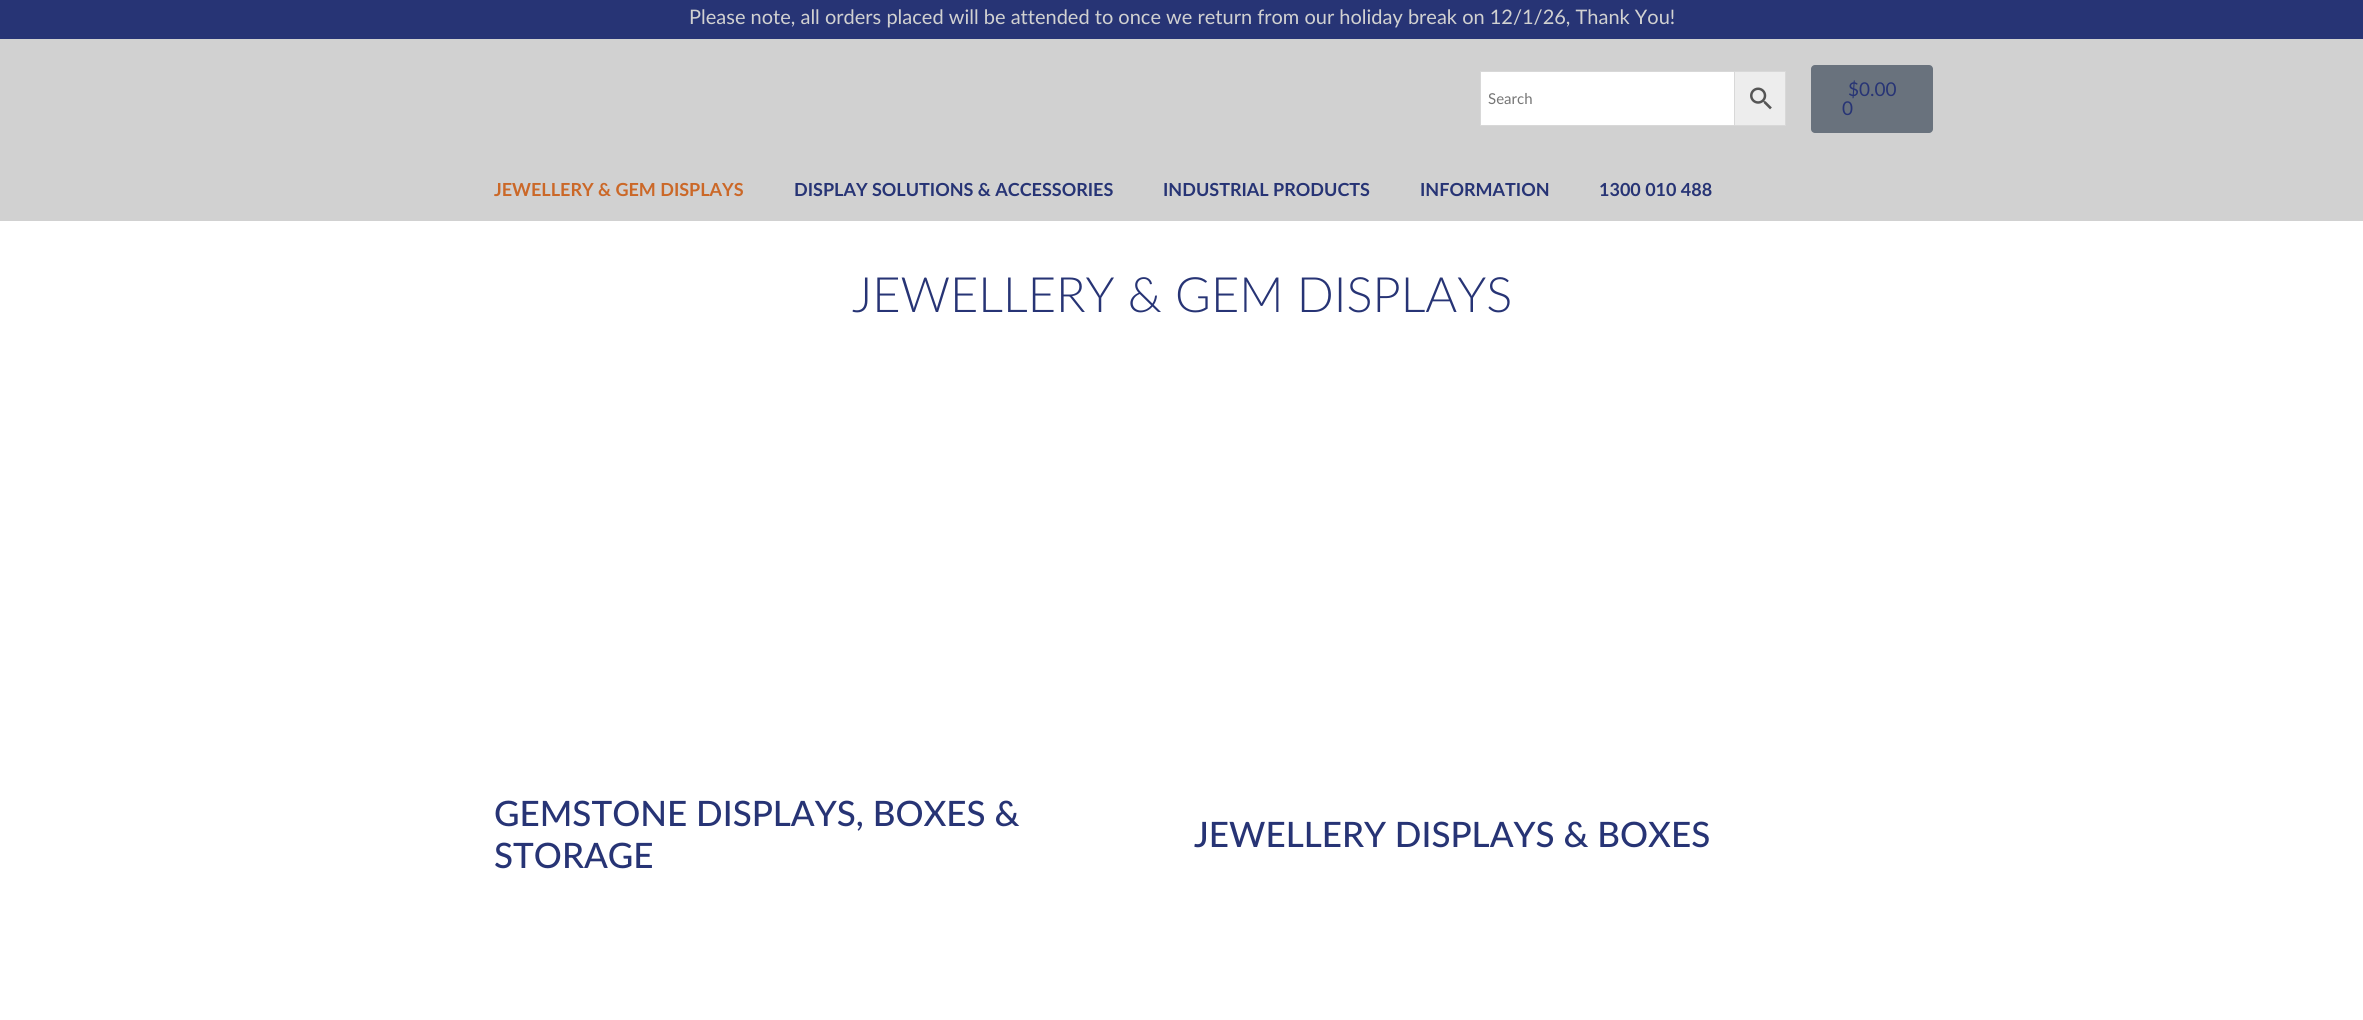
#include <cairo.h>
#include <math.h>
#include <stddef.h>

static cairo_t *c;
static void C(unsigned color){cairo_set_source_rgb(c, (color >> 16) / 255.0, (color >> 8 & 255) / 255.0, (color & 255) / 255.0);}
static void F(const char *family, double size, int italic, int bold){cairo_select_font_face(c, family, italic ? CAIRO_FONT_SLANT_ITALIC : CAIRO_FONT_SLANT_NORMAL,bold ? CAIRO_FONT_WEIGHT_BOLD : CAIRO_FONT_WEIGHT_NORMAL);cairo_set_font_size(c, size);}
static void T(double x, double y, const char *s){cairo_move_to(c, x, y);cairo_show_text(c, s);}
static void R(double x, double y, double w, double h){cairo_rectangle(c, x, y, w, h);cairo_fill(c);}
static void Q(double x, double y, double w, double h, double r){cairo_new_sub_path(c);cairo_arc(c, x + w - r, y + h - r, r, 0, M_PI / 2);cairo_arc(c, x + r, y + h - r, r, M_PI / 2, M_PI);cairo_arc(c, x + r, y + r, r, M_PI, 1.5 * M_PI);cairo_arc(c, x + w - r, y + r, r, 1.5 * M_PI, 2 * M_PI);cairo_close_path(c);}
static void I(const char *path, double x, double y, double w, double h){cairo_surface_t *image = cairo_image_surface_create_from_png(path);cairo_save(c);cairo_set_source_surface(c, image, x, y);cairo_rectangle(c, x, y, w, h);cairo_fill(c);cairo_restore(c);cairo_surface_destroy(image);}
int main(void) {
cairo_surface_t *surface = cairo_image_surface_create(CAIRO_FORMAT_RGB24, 2363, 1020);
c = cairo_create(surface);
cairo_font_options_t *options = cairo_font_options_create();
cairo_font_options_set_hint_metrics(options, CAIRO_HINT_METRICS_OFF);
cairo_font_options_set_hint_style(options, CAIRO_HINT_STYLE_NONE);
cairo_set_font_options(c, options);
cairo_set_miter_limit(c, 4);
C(0xffffff);
cairo_paint(c);
C(0x273475);
R(0,0,2363,39);
F("Lato",20,0,0);
C(0xd1d1d1);
T(689,24,"Please note, all orders placed will be attended to once we return from our holiday break on 12/1/26, Thank You!");
R(0,39,2363,182);
C(0xededed);
cairo_rectangle(c,1734.5,71.5,51,54);
cairo_fill_preserve(c);
C(0xd8d8d8);
cairo_set_line_width(c,1);
cairo_stroke(c);
C(0xffffff);
cairo_rectangle(c,1480.5,71.5,254,54);
cairo_fill_preserve(c);
C(0xd8d8d8);
cairo_stroke(c);
F("Lato",15,0,0);
C(0x757575);
T(1488,104,"Search");
I("1.png",1750,87,22,23);
C(0x69727d);
Q(1811,65,122,68,4);
cairo_fill(c);
F("Lato",19,0,0);
C(0x273475);
T(1848,96,"$0.00");
T(1842,115,"0");
F("Lato",18,0,1);
C(0xcb6828);
T(494,196,"JEWELLERY & GEM DISPLAYS");
C(0x273475);
T(794,196,"DISPLAY SOLUTIONS & ACCESSORIES");
T(1163,196,"INDUSTRIAL PRODUCTS");
T(1420,196,"INFORMATION");
T(1599,196,"1300 010 488");
F("Lato Light",48.75,0,0);
T(852,312,"JEWELLERY & GEM DISPLAYS");
F("Lato Medium",35,0,0);
T(494,826,"GEMSTONE DISPLAYS, BOXES &");
T(494,868,"STORAGE");
T(1194,847,"JEWELLERY DISPLAYS & BOXES");
cairo_surface_write_to_png(surface, "o.png");
cairo_font_options_destroy(options);
cairo_destroy(c);
cairo_surface_destroy(surface);
return 0;
}
